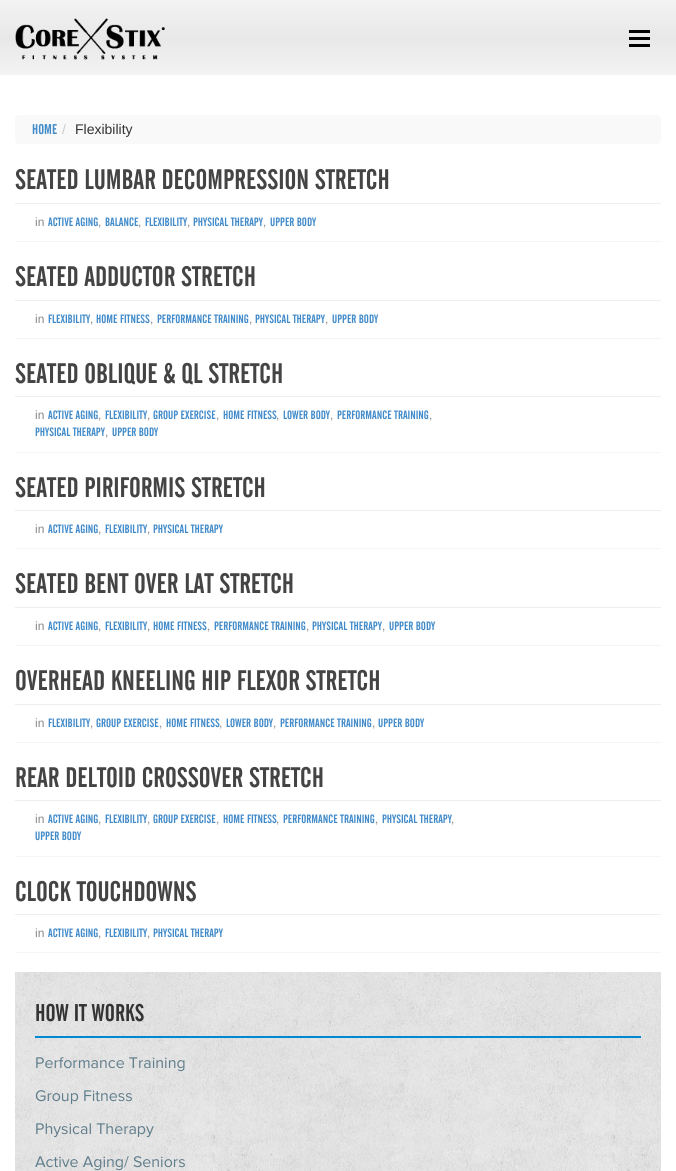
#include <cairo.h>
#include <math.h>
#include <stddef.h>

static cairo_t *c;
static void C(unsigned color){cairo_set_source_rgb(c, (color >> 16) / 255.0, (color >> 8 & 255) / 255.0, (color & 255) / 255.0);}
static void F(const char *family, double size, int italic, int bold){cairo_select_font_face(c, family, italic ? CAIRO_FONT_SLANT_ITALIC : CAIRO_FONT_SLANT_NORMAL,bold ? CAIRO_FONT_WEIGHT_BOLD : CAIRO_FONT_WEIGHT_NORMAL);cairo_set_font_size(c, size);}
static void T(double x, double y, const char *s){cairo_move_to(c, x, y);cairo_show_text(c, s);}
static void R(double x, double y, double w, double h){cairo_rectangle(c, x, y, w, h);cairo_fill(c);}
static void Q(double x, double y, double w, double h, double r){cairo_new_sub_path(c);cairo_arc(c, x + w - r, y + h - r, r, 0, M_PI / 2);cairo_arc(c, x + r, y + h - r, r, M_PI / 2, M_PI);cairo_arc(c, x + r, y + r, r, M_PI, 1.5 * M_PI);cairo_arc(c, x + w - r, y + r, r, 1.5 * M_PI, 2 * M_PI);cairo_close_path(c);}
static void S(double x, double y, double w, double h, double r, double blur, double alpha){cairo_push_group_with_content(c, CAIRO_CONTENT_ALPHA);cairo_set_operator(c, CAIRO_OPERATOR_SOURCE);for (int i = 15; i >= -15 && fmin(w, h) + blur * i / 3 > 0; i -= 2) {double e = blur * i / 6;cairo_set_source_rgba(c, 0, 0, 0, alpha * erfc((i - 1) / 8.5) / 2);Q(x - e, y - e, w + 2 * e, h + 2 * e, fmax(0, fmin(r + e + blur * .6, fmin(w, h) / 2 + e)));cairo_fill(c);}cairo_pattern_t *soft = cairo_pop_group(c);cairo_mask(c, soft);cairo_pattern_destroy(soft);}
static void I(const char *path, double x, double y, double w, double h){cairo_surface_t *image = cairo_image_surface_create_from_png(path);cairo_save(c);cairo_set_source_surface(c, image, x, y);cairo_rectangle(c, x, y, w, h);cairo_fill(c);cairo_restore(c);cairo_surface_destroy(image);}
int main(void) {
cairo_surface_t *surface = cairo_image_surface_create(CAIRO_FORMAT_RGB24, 676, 1171);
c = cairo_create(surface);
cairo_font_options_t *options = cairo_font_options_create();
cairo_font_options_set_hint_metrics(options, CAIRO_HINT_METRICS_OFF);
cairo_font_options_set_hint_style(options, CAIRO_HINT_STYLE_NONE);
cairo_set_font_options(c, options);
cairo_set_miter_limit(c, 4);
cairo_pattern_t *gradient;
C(0xffffff);
cairo_paint(c);
gradient = cairo_pattern_create_linear(338,0,338,75);
cairo_pattern_add_color_stop_rgba(gradient,0,0.953,0.953,0.953,1);
cairo_pattern_add_color_stop_rgba(gradient,.5,0.91,0.91,0.91,1);
cairo_pattern_add_color_stop_rgba(gradient,1,0.953,0.953,0.953,1);
cairo_set_source(c,gradient);
cairo_pattern_destroy(gradient);
R(0,0,676,75);
I("1.png",15,18,150,42);
C(0x000000);
R(629,30,21,3);
R(629,37,21,3);
R(629,44,21,3);
C(0xf9f9f9);
Q(15,115,646,29,4);
cairo_fill(c);
F("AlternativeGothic",14,0,0);
C(0x428bca);
T(32,134,"HOME");
F("Liberation Sans",14,0,0);
C(0xcccccc);
T(62,134,"/");
C(0x333333);
T(75,134,"Flexibility");
cairo_save(c);
cairo_rectangle(c,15,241,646,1);
cairo_clip(c);
C(0x000000);
S(15,165,646,77,0,.5,.05);
cairo_restore(c);
F("AlternativeGothic",28,0,0);
C(0x444444);
T(15,189,"SEATED LUMBAR DECOMPRESSION STRETCH");
C(0xeeeeee);
R(15,203,646,1);
F("Liberation Sans",12,0,0);
C(0x888888);
T(35,226,"in");
F("AlternativeGothic",12,0,0);
C(0x428bca);
T(48,226,"ACTIVE AGING");
F("Liberation Sans",12,0,0);
C(0x888888);
T(98,226,",");
F("AlternativeGothic",12,0,0);
C(0x428bca);
T(105,226,"BALANCE");
F("Liberation Sans",12,0,0);
C(0x888888);
T(138,226,",");
F("AlternativeGothic",12,0,0);
C(0x428bca);
T(145,226,"FLEXIBILITY");
F("Liberation Sans",12,0,0);
C(0x888888);
T(187,226,",");
F("AlternativeGothic",12,0,0);
C(0x428bca);
T(193,226,"PHYSICAL THERAPY");
F("Liberation Sans",12,0,0);
C(0x888888);
T(263,226,",");
F("AlternativeGothic",12,0,0);
C(0x428bca);
T(270,226,"UPPER BODY");
cairo_save(c);
cairo_rectangle(c,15,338,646,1);
cairo_clip(c);
C(0x000000);
S(15,262,646,77,0,.5,.05);
cairo_restore(c);
F("AlternativeGothic",28,0,0);
C(0x444444);
T(15,286,"SEATED ADDUCTOR STRETCH");
C(0xeeeeee);
R(15,300,646,1);
F("Liberation Sans",12,0,0);
C(0x888888);
T(35,323,"in");
F("AlternativeGothic",12,0,0);
C(0x428bca);
T(48,323,"FLEXIBILITY");
F("Liberation Sans",12,0,0);
C(0x888888);
T(90,323,",");
F("AlternativeGothic",12,0,0);
C(0x428bca);
T(96,323,"HOME FITNESS");
F("Liberation Sans",12,0,0);
C(0x888888);
T(150,323,",");
F("AlternativeGothic",12,0,0);
C(0x428bca);
T(157,323,"PERFORMANCE TRAINING");
F("Liberation Sans",12,0,0);
C(0x888888);
T(249,323,",");
F("AlternativeGothic",12,0,0);
C(0x428bca);
T(255,323,"PHYSICAL THERAPY");
F("Liberation Sans",12,0,0);
C(0x888888);
T(325,323,",");
F("AlternativeGothic",12,0,0);
C(0x428bca);
T(332,323,"UPPER BODY");
cairo_save(c);
cairo_rectangle(c,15,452,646,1);
cairo_clip(c);
C(0x000000);
S(15,359,646,94,0,.5,.05);
cairo_restore(c);
F("AlternativeGothic",28,0,0);
C(0x444444);
T(15,383,"SEATED OBLIQUE & QL STRETCH");
C(0xeeeeee);
R(15,396,646,1);
F("Liberation Sans",12,0,0);
C(0x888888);
T(35,419,"in");
F("AlternativeGothic",12,0,0);
C(0x428bca);
T(48,419,"ACTIVE AGING");
F("Liberation Sans",12,0,0);
C(0x888888);
T(98,419,",");
F("AlternativeGothic",12,0,0);
C(0x428bca);
T(105,419,"FLEXIBILITY");
F("Liberation Sans",12,0,0);
C(0x888888);
T(147,419,",");
F("AlternativeGothic",12,0,0);
C(0x428bca);
T(153,419,"GROUP EXERCISE");
F("Liberation Sans",12,0,0);
C(0x888888);
T(216,419,",");
F("AlternativeGothic",12,0,0);
C(0x428bca);
T(223,419,"HOME FITNESS");
F("Liberation Sans",12,0,0);
C(0x888888);
T(276,419,",");
F("AlternativeGothic",12,0,0);
C(0x428bca);
T(283,419,"LOWER BODY");
F("Liberation Sans",12,0,0);
C(0x888888);
T(330,419,",");
F("AlternativeGothic",12,0,0);
C(0x428bca);
T(337,419,"PERFORMANCE TRAINING");
F("Liberation Sans",12,0,0);
C(0x888888);
T(429,419,",");
F("AlternativeGothic",12,0,0);
C(0x428bca);
T(35,436,"PHYSICAL THERAPY");
F("Liberation Sans",12,0,0);
C(0x888888);
T(105,436,",");
F("AlternativeGothic",12,0,0);
C(0x428bca);
T(112,436,"UPPER BODY");
cairo_save(c);
cairo_rectangle(c,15,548,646,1);
cairo_clip(c);
C(0x000000);
S(15,473,646,76,0,.5,.05);
cairo_restore(c);
F("AlternativeGothic",28,0,0);
C(0x444444);
T(15,497,"SEATED PIRIFORMIS STRETCH");
C(0xeeeeee);
R(15,510,646,1);
F("Liberation Sans",12,0,0);
C(0x888888);
T(35,533,"in");
F("AlternativeGothic",12,0,0);
C(0x428bca);
T(48,533,"ACTIVE AGING");
F("Liberation Sans",12,0,0);
C(0x888888);
T(98,533,",");
F("AlternativeGothic",12,0,0);
C(0x428bca);
T(105,533,"FLEXIBILITY");
F("Liberation Sans",12,0,0);
C(0x888888);
T(147,533,",");
F("AlternativeGothic",12,0,0);
C(0x428bca);
T(153,533,"PHYSICAL THERAPY");
cairo_save(c);
cairo_rectangle(c,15,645,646,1);
cairo_clip(c);
C(0x000000);
S(15,569,646,77,0,.5,.05);
cairo_restore(c);
F("AlternativeGothic",28,0,0);
C(0x444444);
T(15,593,"SEATED BENT OVER LAT STRETCH");
C(0xeeeeee);
R(15,607,646,1);
F("Liberation Sans",12,0,0);
C(0x888888);
T(35,630,"in");
F("AlternativeGothic",12,0,0);
C(0x428bca);
T(48,630,"ACTIVE AGING");
F("Liberation Sans",12,0,0);
C(0x888888);
T(98,630,",");
F("AlternativeGothic",12,0,0);
C(0x428bca);
T(105,630,"FLEXIBILITY");
F("Liberation Sans",12,0,0);
C(0x888888);
T(147,630,",");
F("AlternativeGothic",12,0,0);
C(0x428bca);
T(153,630,"HOME FITNESS");
F("Liberation Sans",12,0,0);
C(0x888888);
T(207,630,",");
F("AlternativeGothic",12,0,0);
C(0x428bca);
T(214,630,"PERFORMANCE TRAINING");
F("Liberation Sans",12,0,0);
C(0x888888);
T(306,630,",");
F("AlternativeGothic",12,0,0);
C(0x428bca);
T(312,630,"PHYSICAL THERAPY");
F("Liberation Sans",12,0,0);
C(0x888888);
T(382,630,",");
F("AlternativeGothic",12,0,0);
C(0x428bca);
T(389,630,"UPPER BODY");
cairo_save(c);
cairo_rectangle(c,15,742,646,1);
cairo_clip(c);
C(0x000000);
S(15,666,646,77,0,.5,.05);
cairo_restore(c);
F("AlternativeGothic",28,0,0);
C(0x444444);
T(15,690,"OVERHEAD KNEELING HIP FLEXOR STRETCH");
C(0xeeeeee);
R(15,704,646,1);
F("Liberation Sans",12,0,0);
C(0x888888);
T(35,727,"in");
F("AlternativeGothic",12,0,0);
C(0x428bca);
T(48,727,"FLEXIBILITY");
F("Liberation Sans",12,0,0);
C(0x888888);
T(90,727,",");
F("AlternativeGothic",12,0,0);
C(0x428bca);
T(96,727,"GROUP EXERCISE");
F("Liberation Sans",12,0,0);
C(0x888888);
T(159,727,",");
F("AlternativeGothic",12,0,0);
C(0x428bca);
T(166,727,"HOME FITNESS");
F("Liberation Sans",12,0,0);
C(0x888888);
T(219,727,",");
F("AlternativeGothic",12,0,0);
C(0x428bca);
T(226,727,"LOWER BODY");
F("Liberation Sans",12,0,0);
C(0x888888);
T(273,727,",");
F("AlternativeGothic",12,0,0);
C(0x428bca);
T(280,727,"PERFORMANCE TRAINING");
F("Liberation Sans",12,0,0);
C(0x888888);
T(372,727,",");
F("AlternativeGothic",12,0,0);
C(0x428bca);
T(378,727,"UPPER BODY");
cairo_save(c);
cairo_rectangle(c,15,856,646,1);
cairo_clip(c);
C(0x000000);
S(15,763,646,94,0,.5,.05);
cairo_restore(c);
F("AlternativeGothic",28,0,0);
C(0x444444);
T(15,787,"REAR DELTOID CROSSOVER STRETCH");
C(0xeeeeee);
R(15,800,646,1);
F("Liberation Sans",12,0,0);
C(0x888888);
T(35,823,"in");
F("AlternativeGothic",12,0,0);
C(0x428bca);
T(48,823,"ACTIVE AGING");
F("Liberation Sans",12,0,0);
C(0x888888);
T(98,823,",");
F("AlternativeGothic",12,0,0);
C(0x428bca);
T(105,823,"FLEXIBILITY");
F("Liberation Sans",12,0,0);
C(0x888888);
T(147,823,",");
F("AlternativeGothic",12,0,0);
C(0x428bca);
T(153,823,"GROUP EXERCISE");
F("Liberation Sans",12,0,0);
C(0x888888);
T(216,823,",");
F("AlternativeGothic",12,0,0);
C(0x428bca);
T(223,823,"HOME FITNESS");
F("Liberation Sans",12,0,0);
C(0x888888);
T(276,823,",");
F("AlternativeGothic",12,0,0);
C(0x428bca);
T(283,823,"PERFORMANCE TRAINING");
F("Liberation Sans",12,0,0);
C(0x888888);
T(375,823,",");
F("AlternativeGothic",12,0,0);
C(0x428bca);
T(382,823,"PHYSICAL THERAPY");
F("Liberation Sans",12,0,0);
C(0x888888);
T(451,823,",");
F("AlternativeGothic",12,0,0);
C(0x428bca);
T(35,840,"UPPER BODY");
cairo_save(c);
cairo_rectangle(c,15,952,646,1);
cairo_clip(c);
C(0x000000);
S(15,877,646,76,0,.5,.05);
cairo_restore(c);
F("AlternativeGothic",28,0,0);
C(0x444444);
T(15,901,"CLOCK TOUCHDOWNS");
C(0xeeeeee);
R(15,914,646,1);
F("Liberation Sans",12,0,0);
C(0x888888);
T(35,937,"in");
F("AlternativeGothic",12,0,0);
C(0x428bca);
T(48,937,"ACTIVE AGING");
F("Liberation Sans",12,0,0);
C(0x888888);
T(98,937,",");
F("AlternativeGothic",12,0,0);
C(0x428bca);
T(105,937,"FLEXIBILITY");
F("Liberation Sans",12,0,0);
C(0x888888);
T(147,937,",");
F("AlternativeGothic",12,0,0);
C(0x428bca);
T(153,937,"PHYSICAL THERAPY");
I("2.png",15,972,646,199);
C(0x0288d1);
R(35,1036,606,2);
F("AlternativeGothic",24,0,0);
C(0x333333);
T(35,1021,"HOW IT WORKS");
F("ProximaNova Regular",16,0,0);
C(0x607d8b);
T(35,1068,"Performance Training");
T(35,1101,"Group Fitness");
T(35,1134,"Physical Therapy");
T(35,1167,"Active Aging/ Seniors");
cairo_surface_write_to_png(surface, "o.png");
cairo_font_options_destroy(options);
cairo_destroy(c);
cairo_surface_destroy(surface);
return 0;
}
